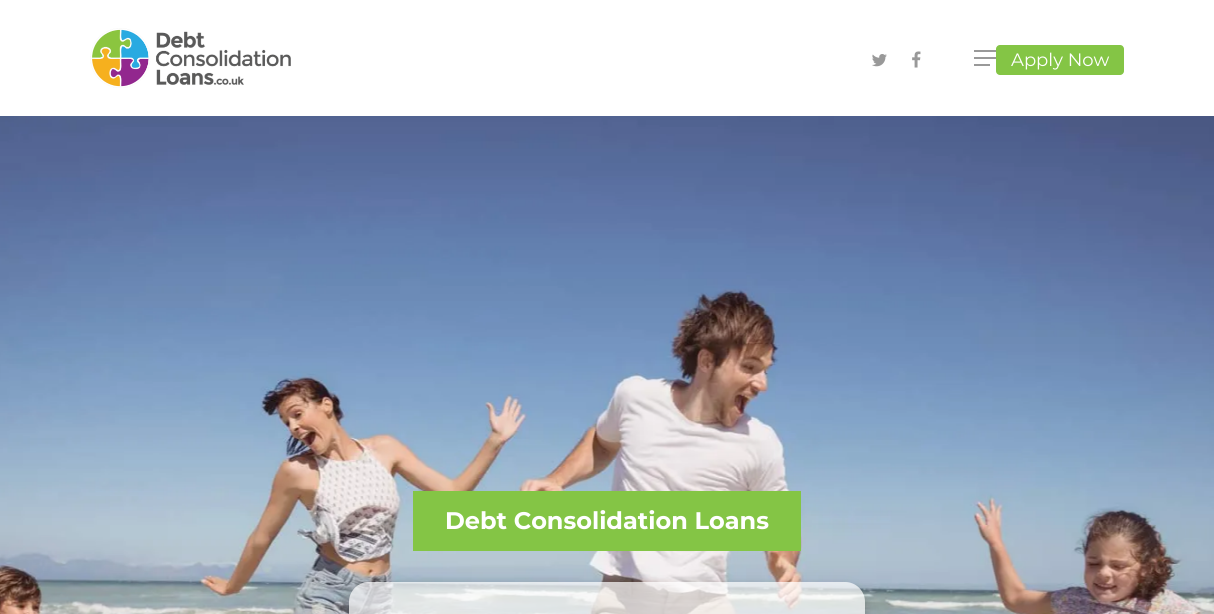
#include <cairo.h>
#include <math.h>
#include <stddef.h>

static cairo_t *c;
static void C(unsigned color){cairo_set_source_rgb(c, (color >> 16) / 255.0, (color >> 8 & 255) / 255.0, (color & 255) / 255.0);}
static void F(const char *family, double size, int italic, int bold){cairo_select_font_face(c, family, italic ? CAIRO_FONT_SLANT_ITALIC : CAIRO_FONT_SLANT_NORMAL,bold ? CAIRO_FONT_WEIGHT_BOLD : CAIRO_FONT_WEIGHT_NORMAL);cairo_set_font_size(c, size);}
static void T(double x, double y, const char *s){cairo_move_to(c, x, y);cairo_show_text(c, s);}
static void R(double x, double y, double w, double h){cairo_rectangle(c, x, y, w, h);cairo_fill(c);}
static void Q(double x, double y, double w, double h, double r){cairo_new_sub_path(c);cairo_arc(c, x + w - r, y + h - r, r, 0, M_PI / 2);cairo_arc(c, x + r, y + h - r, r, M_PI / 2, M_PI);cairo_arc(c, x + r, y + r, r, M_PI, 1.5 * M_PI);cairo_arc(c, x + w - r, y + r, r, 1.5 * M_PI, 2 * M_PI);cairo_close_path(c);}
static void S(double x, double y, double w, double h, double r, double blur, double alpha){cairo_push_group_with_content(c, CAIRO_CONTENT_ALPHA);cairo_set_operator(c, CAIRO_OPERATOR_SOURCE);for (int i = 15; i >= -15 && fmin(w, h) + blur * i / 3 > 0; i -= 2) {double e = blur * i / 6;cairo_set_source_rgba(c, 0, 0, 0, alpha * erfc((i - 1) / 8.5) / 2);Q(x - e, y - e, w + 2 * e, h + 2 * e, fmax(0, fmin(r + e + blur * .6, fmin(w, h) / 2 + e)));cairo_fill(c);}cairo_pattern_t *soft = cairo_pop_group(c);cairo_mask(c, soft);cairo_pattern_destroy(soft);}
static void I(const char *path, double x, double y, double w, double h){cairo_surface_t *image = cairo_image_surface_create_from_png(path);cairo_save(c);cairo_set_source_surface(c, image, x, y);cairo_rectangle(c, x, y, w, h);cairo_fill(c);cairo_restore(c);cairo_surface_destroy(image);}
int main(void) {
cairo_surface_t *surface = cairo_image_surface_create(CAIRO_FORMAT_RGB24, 1214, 614);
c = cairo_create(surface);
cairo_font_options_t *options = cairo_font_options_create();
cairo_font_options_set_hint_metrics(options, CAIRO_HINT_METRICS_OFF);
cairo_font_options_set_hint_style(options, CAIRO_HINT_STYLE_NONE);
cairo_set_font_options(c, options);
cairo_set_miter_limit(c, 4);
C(0xffffff);
cairo_paint(c);
I("1.png",90,28,201,60);
I("2.png",872,54,15,13);
I("3.png",912,51,9,17);
C(0x999999);
R(974,50,22,2);
R(974,64,16,2);
R(974,57,22,2);
C(0x84c545);
Q(996,45,128,30,4);
cairo_fill(c);
F("Montserrat",18,0,0);
C(0xffffff);
T(1011,66,"Apply Now");
I("4.png",0,116,1214,498);
C(0x84c545);
R(413,491,388,60);
F("Montserrat",24,0,1);
C(0xffffff);
T(445,529,"Debt Consolidation Loans");
cairo_save(c);
cairo_set_fill_rule(c,CAIRO_FILL_RULE_EVEN_ODD);
cairo_new_path(c);
cairo_move_to(c,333,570);
cairo_line_to(c,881,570);
cairo_line_to(c,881,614);
cairo_line_to(c,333,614);
cairo_close_path(c);
cairo_move_to(c,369,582);
cairo_line_to(c,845,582);
cairo_curve_to(c,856,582,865,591,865,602);
cairo_line_to(c,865,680);
cairo_curve_to(c,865,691,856,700,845,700);
cairo_line_to(c,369,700);
cairo_curve_to(c,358,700,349,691,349,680);
cairo_line_to(c,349,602);
cairo_curve_to(c,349,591,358,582,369,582);
cairo_close_path(c);
cairo_clip(c);
C(0x000000);
S(349,586,516,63,20,5,.2);
cairo_restore(c);
cairo_set_source_rgba(c,1,1,1,0.7);
Q(349,582,516,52,20);
cairo_fill(c);
cairo_surface_write_to_png(surface, "o.png");
cairo_font_options_destroy(options);
cairo_destroy(c);
cairo_surface_destroy(surface);
return 0;
}
